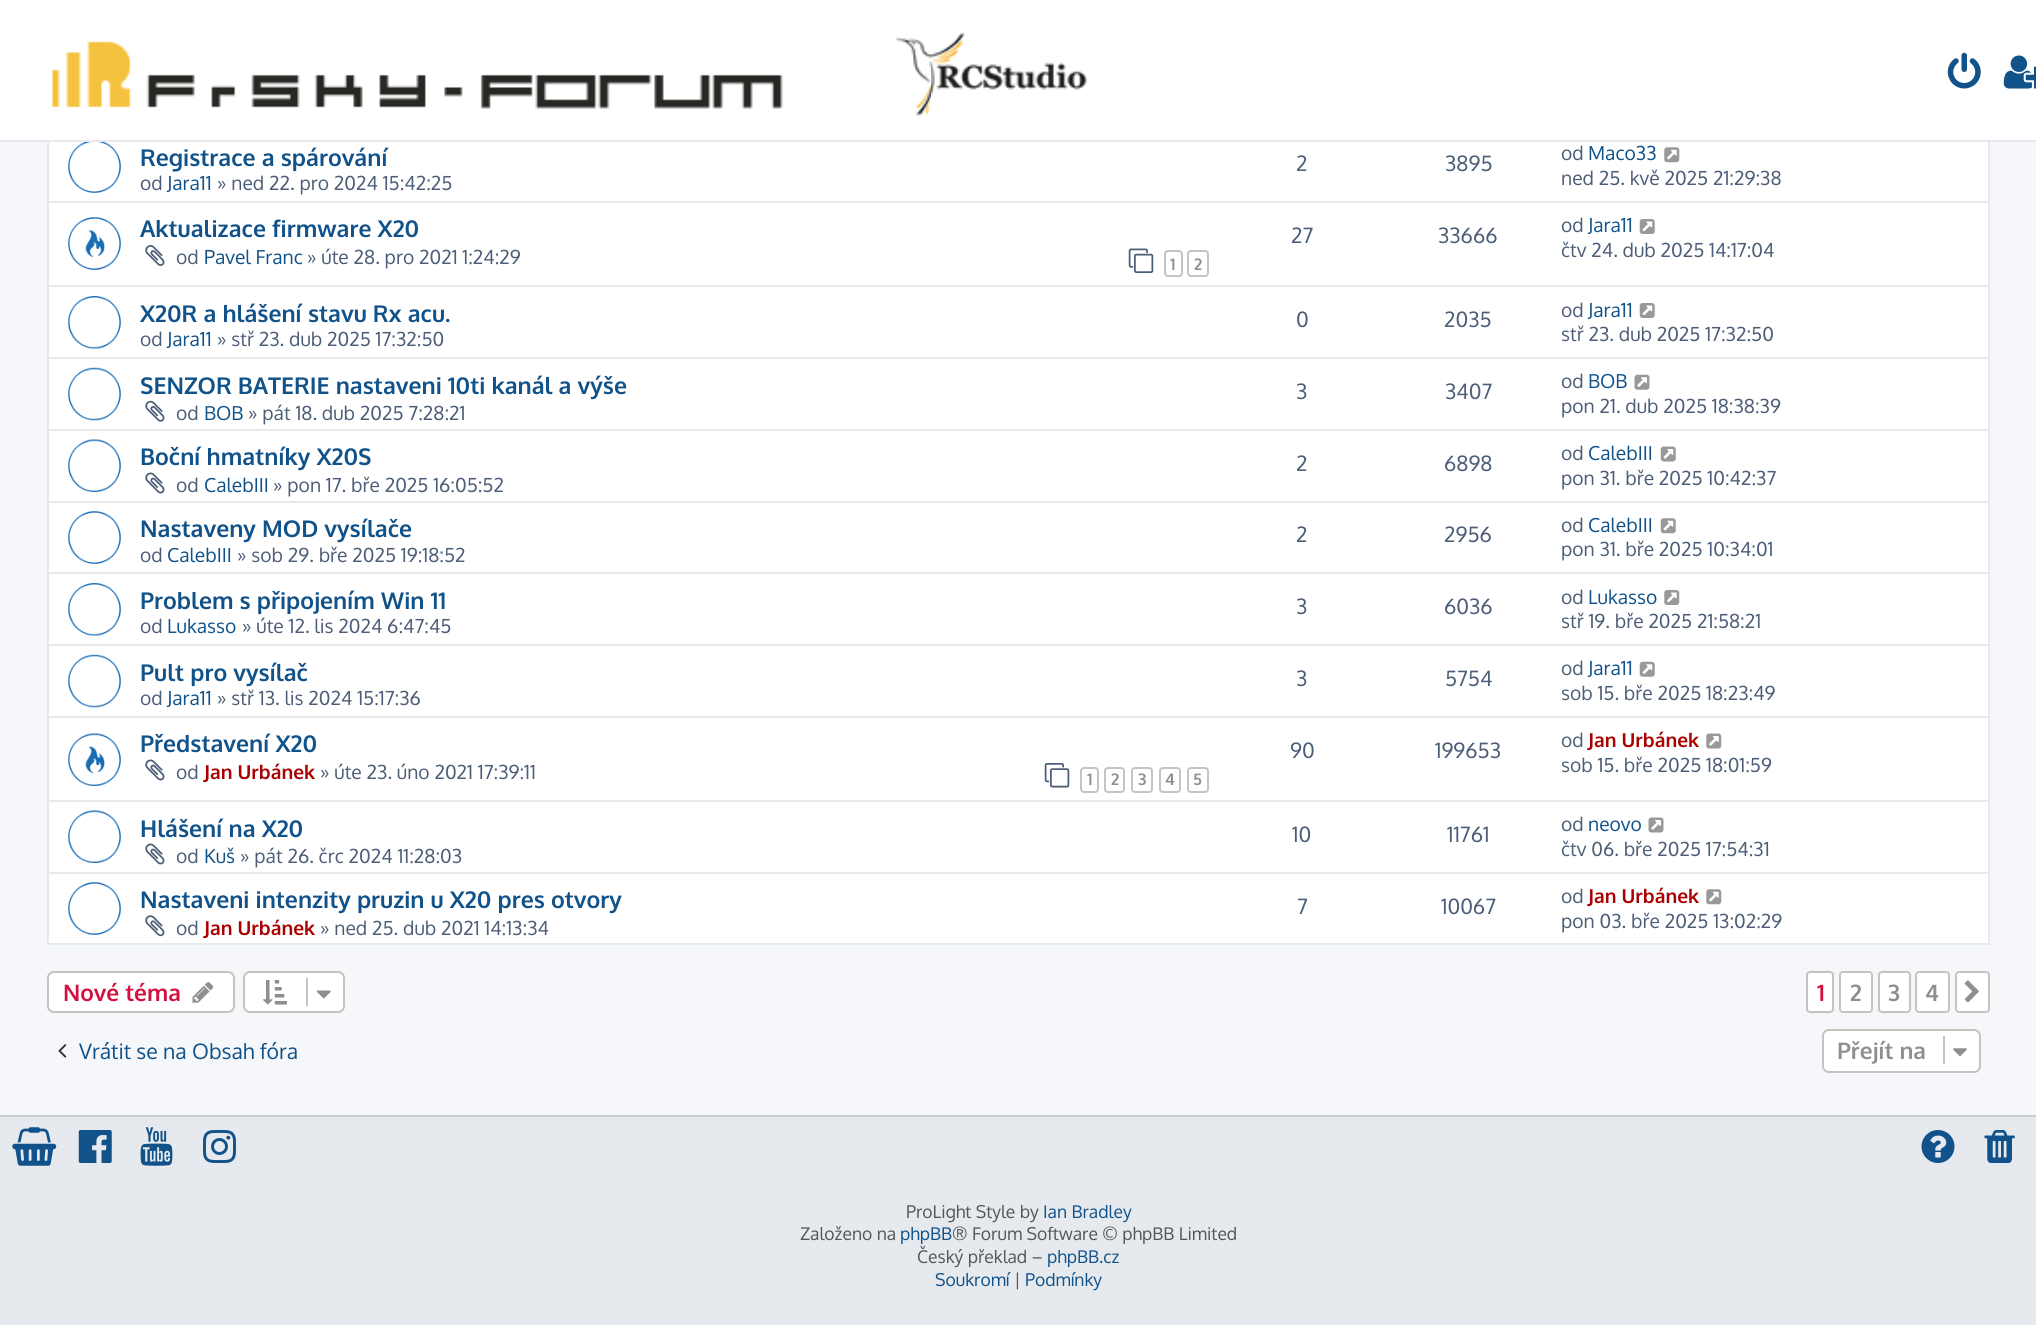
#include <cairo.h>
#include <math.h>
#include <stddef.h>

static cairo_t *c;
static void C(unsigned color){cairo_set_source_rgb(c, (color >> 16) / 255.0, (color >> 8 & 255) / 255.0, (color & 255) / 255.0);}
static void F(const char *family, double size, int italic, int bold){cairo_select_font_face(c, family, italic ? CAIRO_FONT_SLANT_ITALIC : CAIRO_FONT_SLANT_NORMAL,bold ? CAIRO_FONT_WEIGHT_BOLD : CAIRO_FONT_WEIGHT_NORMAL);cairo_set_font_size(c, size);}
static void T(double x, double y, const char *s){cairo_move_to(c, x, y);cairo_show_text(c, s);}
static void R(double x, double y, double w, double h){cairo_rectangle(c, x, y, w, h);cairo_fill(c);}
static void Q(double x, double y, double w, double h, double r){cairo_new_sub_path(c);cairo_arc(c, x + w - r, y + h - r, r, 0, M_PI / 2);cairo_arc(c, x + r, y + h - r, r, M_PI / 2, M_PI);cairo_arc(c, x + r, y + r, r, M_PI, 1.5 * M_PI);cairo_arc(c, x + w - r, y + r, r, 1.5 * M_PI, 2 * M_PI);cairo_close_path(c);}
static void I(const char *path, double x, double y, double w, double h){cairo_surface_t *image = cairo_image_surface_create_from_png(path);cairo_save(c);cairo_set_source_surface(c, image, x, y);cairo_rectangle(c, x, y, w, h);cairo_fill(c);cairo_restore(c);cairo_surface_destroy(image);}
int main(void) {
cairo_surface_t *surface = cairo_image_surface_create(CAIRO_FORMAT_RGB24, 2036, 1325);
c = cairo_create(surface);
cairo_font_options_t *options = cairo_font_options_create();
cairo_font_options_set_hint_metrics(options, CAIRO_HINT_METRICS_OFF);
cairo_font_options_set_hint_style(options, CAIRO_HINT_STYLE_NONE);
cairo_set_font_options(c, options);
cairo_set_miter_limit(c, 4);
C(0xf5f7fa);
cairo_paint(c);
C(0xffffff);
R(49,142,1939,801);
cairo_rectangle(c,48,-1,1941,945);
C(0xe6e9ed);
cairo_stroke(c);
C(0xffffff);
R(0,0,2036,140);
C(0xe6e9ed);
R(0,140,2036,2);
I("1.png",52,32,1035,84);
I("2.png",1947,52,34,37);
I("3.png",2003,55,33,34);
I("4.png",68,142,53,51);
F("Oxygen",23.1,0,1);
C(0x105289);
T(140,166,"Registrace a spárování");
F("Oxygen",19.25,0,0);
C(0x4c5d77);
T(140,190,"od");
C(0x105289);
T(167,190,"Jara11");
C(0x4c5d77);
T(217,190,"» ned 22. pro 2024 15:42:25");
F("Oxygen",21,0,0);
T(1296,171,"2");
T(1445,171,"3895");
F("Oxygen",19.25,0,0);
T(1561,160,"od");
C(0x105289);
T(1588,160,"Maco33");
I("5.png",1664,147,16,16);
C(0x4c5d77);
T(1561,185,"ned 25. kvě 2025 21:29:38");
C(0xe6e9ed);
R(49,201,1939,2);
I("6.png",68,217,53,53);
F("Oxygen",23.1,0,1);
C(0x105289);
T(140,237,"Aktualizace firmware X20");
I("7.png",145,245,20,21);
F("Oxygen",19.25,0,0);
C(0x4c5d77);
T(176,264,"od");
C(0x105289);
T(204,264,"Pavel Franc");
C(0x4c5d77);
T(307,264,"» úte 28. pro 2021 1:24:29");
I("8.png",1128,248,26,25);
Q(1165,251,17,25,3);
C(0xc7c3bf);
cairo_stroke(c);
F("Oxygen",16,0,1);
C(0x8f8f8f);
T(1170,270,"1");
Q(1188,251,20,25,3);
C(0xc7c3bf);
cairo_stroke(c);
C(0x8f8f8f);
T(1194,270,"2");
F("Oxygen",21,0,0);
C(0x4c5d77);
T(1291,243,"27");
T(1438,243,"33666");
F("Oxygen",19.25,0,0);
T(1561,232,"od");
C(0x105289);
T(1588,232,"Jara11");
I("9.png",1639,219,16,15);
C(0x4c5d77);
T(1561,257,"čtv 24. dub 2025 14:17:04");
C(0xe6e9ed);
R(49,285,1939,2);
I("10.png",68,296,53,53);
F("Oxygen",23.1,0,1);
C(0x105289);
T(140,322,"X20R a hlášení stavu Rx acu.");
F("Oxygen",19.25,0,0);
C(0x4c5d77);
T(140,346,"od");
C(0x105289);
T(167,346,"Jara11");
C(0x4c5d77);
T(217,346,"» stř 23. dub 2025 17:32:50");
F("Oxygen",21,0,0);
T(1296,327,"0");
T(1444,327,"2035");
F("Oxygen",19.25,0,0);
T(1561,317,"od");
C(0x105289);
T(1588,317,"Jara11");
I("9.png",1639,303,16,15);
C(0x4c5d77);
T(1561,341,"stř 23. dub 2025 17:32:50");
C(0xe6e9ed);
R(49,357,1939,2);
I("11.png",68,367,53,54);
F("Oxygen",23.1,0,1);
C(0x105289);
T(140,394,"SENZOR BATERIE nastaveni 10ti kanál a výše");
I("12.png",145,400,20,22);
F("Oxygen",19.25,0,0);
C(0x4c5d77);
T(176,420,"od");
C(0x105289);
T(204,420,"BOB");
C(0x4c5d77);
T(248,420,"» pát 18. dub 2025 7:28:21");
F("Oxygen",21,0,0);
T(1296,399,"3");
T(1445,399,"3407");
F("Oxygen",19.25,0,0);
T(1561,388,"od");
C(0x105289);
T(1588,388,"BOB");
I("13.png",1634,374,16,16);
C(0x4c5d77);
T(1561,413,"pon 21. dub 2025 18:38:39");
C(0xe6e9ed);
R(49,429,1939,2);
I("14.png",68,439,53,53);
F("Oxygen",23.1,0,1);
C(0x105289);
T(140,465,"Boční hmatníky X20S");
I("15.png",145,472,20,22);
F("Oxygen",19.25,0,0);
C(0x4c5d77);
T(176,492,"od");
C(0x105289);
T(204,492,"CalebIII");
C(0x4c5d77);
T(273,492,"» pon 17. bře 2025 16:05:52");
F("Oxygen",21,0,0);
T(1296,471,"2");
T(1444,471,"6898");
F("Oxygen",19.25,0,0);
T(1561,460,"od");
C(0x105289);
T(1588,460,"CalebIII");
I("16.png",1660,446,16,16);
C(0x4c5d77);
T(1561,485,"pon 31. bře 2025 10:42:37");
C(0xe6e9ed);
R(49,501,1939,2);
I("17.png",68,511,53,53);
F("Oxygen",23.1,0,1);
C(0x105289);
T(140,537,"Nastaveny MOD vysílače");
F("Oxygen",19.25,0,0);
C(0x4c5d77);
T(140,562,"od");
C(0x105289);
T(167,562,"CalebIII");
C(0x4c5d77);
T(237,562,"» sob 29. bře 2025 19:18:52");
F("Oxygen",21,0,0);
T(1296,542,"2");
T(1444,542,"2956");
F("Oxygen",19.25,0,0);
T(1561,532,"od");
C(0x105289);
T(1588,532,"CalebIII");
I("18.png",1660,518,16,16);
C(0x4c5d77);
T(1561,556,"pon 31. bře 2025 10:34:01");
C(0xe6e9ed);
R(49,572,1939,2);
I("10.png",68,583,53,53);
F("Oxygen",23.1,0,1);
C(0x105289);
T(140,609,"Problem s připojením Win 11");
F("Oxygen",19.25,0,0);
C(0x4c5d77);
T(140,633,"od");
C(0x105289);
T(167,633,"Lukasso");
C(0x4c5d77);
T(242,633,"» úte 12. lis 2024 6:47:45");
F("Oxygen",21,0,0);
T(1296,614,"3");
T(1444,614,"6036");
F("Oxygen",19.25,0,0);
T(1561,604,"od");
C(0x105289);
T(1588,604,"Lukasso");
I("19.png",1664,590,16,15);
C(0x4c5d77);
T(1561,628,"stř 19. bře 2025 21:58:21");
C(0xe6e9ed);
R(49,644,1939,2);
I("11.png",68,654,53,54);
F("Oxygen",23.1,0,1);
C(0x105289);
T(140,681,"Pult pro vysílač");
F("Oxygen",19.25,0,0);
C(0x4c5d77);
T(140,705,"od");
C(0x105289);
T(167,705,"Jara11");
C(0x4c5d77);
T(217,705,"» stř 13. lis 2024 15:17:36");
F("Oxygen",21,0,0);
T(1296,686,"3");
T(1445,686,"5754");
F("Oxygen",19.25,0,0);
T(1561,675,"od");
C(0x105289);
T(1588,675,"Jara11");
I("20.png",1639,661,16,16);
C(0x4c5d77);
T(1561,700,"sob 15. bře 2025 18:23:49");
C(0xe6e9ed);
R(49,716,1939,2);
I("21.png",68,733,53,53);
F("Oxygen",23.1,0,1);
C(0x105289);
T(140,752,"Představení X20");
I("15.png",145,759,20,22);
F("Oxygen",19.25,0,0);
C(0x4c5d77);
T(176,779,"od");
F("Oxygen",19.25,0,1);
C(0xaa0000);
T(204,779,"Jan Urbánek");
F("Oxygen",19.25,0,0);
C(0x4c5d77);
T(320,779,"» úte 23. úno 2021 17:39:11");
I("22.png",1044,763,26,25);
Q(1081,768,17,24,3);
C(0xc7c3bf);
cairo_stroke(c);
F("Oxygen",16,0,1);
C(0x8f8f8f);
T(1087,785,"1");
Q(1105,768,19,24,3);
C(0xc7c3bf);
cairo_stroke(c);
C(0x8f8f8f);
T(1111,785,"2");
Q(1132,768,20,24,3);
C(0xc7c3bf);
cairo_stroke(c);
C(0x8f8f8f);
T(1138,785,"3");
Q(1160,768,20,24,3);
C(0xc7c3bf);
cairo_stroke(c);
C(0x8f8f8f);
T(1165,785,"4");
Q(1188,768,20,24,3);
C(0xc7c3bf);
cairo_stroke(c);
C(0x8f8f8f);
T(1193,785,"5");
F("Oxygen",21,0,0);
C(0x4c5d77);
T(1290,758,"90");
T(1435,758,"199653");
F("Oxygen",19.25,0,0);
T(1561,747,"od");
F("Oxygen",19.25,0,1);
C(0xaa0000);
T(1588,747,"Jan Urbánek");
I("23.png",1706,733,16,16);
F("Oxygen",19.25,0,0);
C(0x4c5d77);
T(1561,772,"sob 15. bře 2025 18:01:59");
C(0xe6e9ed);
R(49,800,1939,2);
I("14.png",68,810,53,53);
F("Oxygen",23.1,0,1);
C(0x105289);
T(140,837,"Hlášení na X20");
I("15.png",145,843,20,22);
F("Oxygen",19.25,0,0);
C(0x4c5d77);
T(176,863,"od");
C(0x105289);
T(204,863,"Kuš");
C(0x4c5d77);
T(240,863,"» pát 26. črc 2024 11:28:03");
F("Oxygen",21,0,0);
T(1292,842,"10");
T(1447,842,"11761");
F("Oxygen",19.25,0,0);
T(1561,831,"od");
C(0x105289);
T(1588,831,"neovo");
I("24.png",1648,817,16,16);
C(0x4c5d77);
T(1561,856,"čtv 06. bře 2025 17:54:31");
C(0xe6e9ed);
R(49,872,1939,2);
I("17.png",68,882,53,53);
F("Oxygen",23.1,0,1);
C(0x105289);
T(140,908,"Nastaveni intenzity pruzin u X20 pres otvory");
I("25.png",145,915,20,22);
F("Oxygen",19.25,0,0);
C(0x4c5d77);
T(176,935,"od");
F("Oxygen",19.25,0,1);
C(0xaa0000);
T(204,935,"Jan Urbánek");
F("Oxygen",19.25,0,0);
C(0x4c5d77);
T(320,935,"» ned 25. dub 2021 14:13:34");
F("Oxygen",21,0,0);
T(1297,914,"7");
T(1441,914,"10067");
F("Oxygen",19.25,0,0);
T(1561,903,"od");
F("Oxygen",19.25,0,1);
C(0xaa0000);
T(1588,903,"Jan Urbánek");
I("26.png",1706,889,16,16);
F("Oxygen",19.25,0,0);
C(0x4c5d77);
T(1561,928,"pon 03. bře 2025 13:02:29");
C(0xffffff);
Q(48,972,186,40,6);
cairo_fill_preserve(c);
C(0xc7c3bf);
cairo_stroke(c);
F("Oxygen",22.75,0,1);
C(0xd31141);
T(63,1001,"Nové téma");
I("27.png",192,982,22,21);
C(0xffffff);
Q(244,972,100,40,6);
cairo_fill_preserve(c);
C(0xc7c3bf);
cairo_stroke(c);
I("28.png",263,980,24,25);
R(306,978,2,28);
I("29.png",316,990,15,9);
C(0xffffff);
Q(1807,972,26,40,3);
cairo_fill_preserve(c);
C(0xc7c3bf);
cairo_stroke(c);
C(0xd31141);
T(1817,1001,"1");
C(0xffffff);
Q(1840,972,32,40,3);
cairo_fill_preserve(c);
C(0xc7c3bf);
cairo_stroke(c);
C(0x8f8f8f);
T(1850,1001,"2");
C(0xffffff);
Q(1879,972,31,40,3);
cairo_fill_preserve(c);
C(0xc7c3bf);
cairo_stroke(c);
C(0x8f8f8f);
T(1888,1001,"3");
C(0xffffff);
Q(1916,972,33,40,3);
cairo_fill_preserve(c);
C(0xc7c3bf);
cairo_stroke(c);
C(0x8f8f8f);
T(1925,1001,"4");
C(0xffffff);
Q(1956,972,33,40,3);
cairo_fill_preserve(c);
C(0xc7c3bf);
cairo_stroke(c);
I("30.png",1964,980,15,23);
I("31.png",58,1044,9,14);
F("Oxygen",21.25,0,0);
C(0x105289);
T(79,1059,"Vrátit se na Obsah fóra");
C(0xffffff);
Q(1823,1030,157,42,6);
cairo_fill_preserve(c);
C(0xc7c3bf);
cairo_stroke(c);
F("Oxygen",22.75,0,1);
C(0x8f8f8f);
T(1837,1059,"Přejít na");
C(0xc7c3bf);
R(1943,1036,2,28);
I("32.png",1953,1048,14,8);
C(0xe6e9ed);
R(0,1117,2036,208);
C(0xcccccc);
R(0,1115,2036,2);
I("33.png",12,1127,45,39);
I("34.png",78,1130,34,33);
I("35.png",140,1127,33,39);
I("36.png",203,1130,33,33);
I("37.png",1921,1130,34,33);
I("38.png",1984,1130,31,33);
F("Oxygen",17.5,0,0);
C(0x555555);
T(906,1218,"ProLight Style by");
C(0x105289);
T(1043,1218,"Ian Bradley");
C(0x555555);
T(800,1240,"Založeno na");
C(0x105289);
T(900,1240,"phpBB");
C(0x555555);
T(952,1240,"® Forum Software © phpBB Limited");
T(917,1263,"Český překlad –");
C(0x105289);
T(1047,1263,"phpBB.cz");
T(935,1286,"Soukromí");
C(0x555555);
T(1014,1286,"|");
C(0x105289);
T(1025,1286,"Podmínky");
cairo_surface_write_to_png(surface, "o.png");
cairo_font_options_destroy(options);
cairo_destroy(c);
cairo_surface_destroy(surface);
return 0;
}
